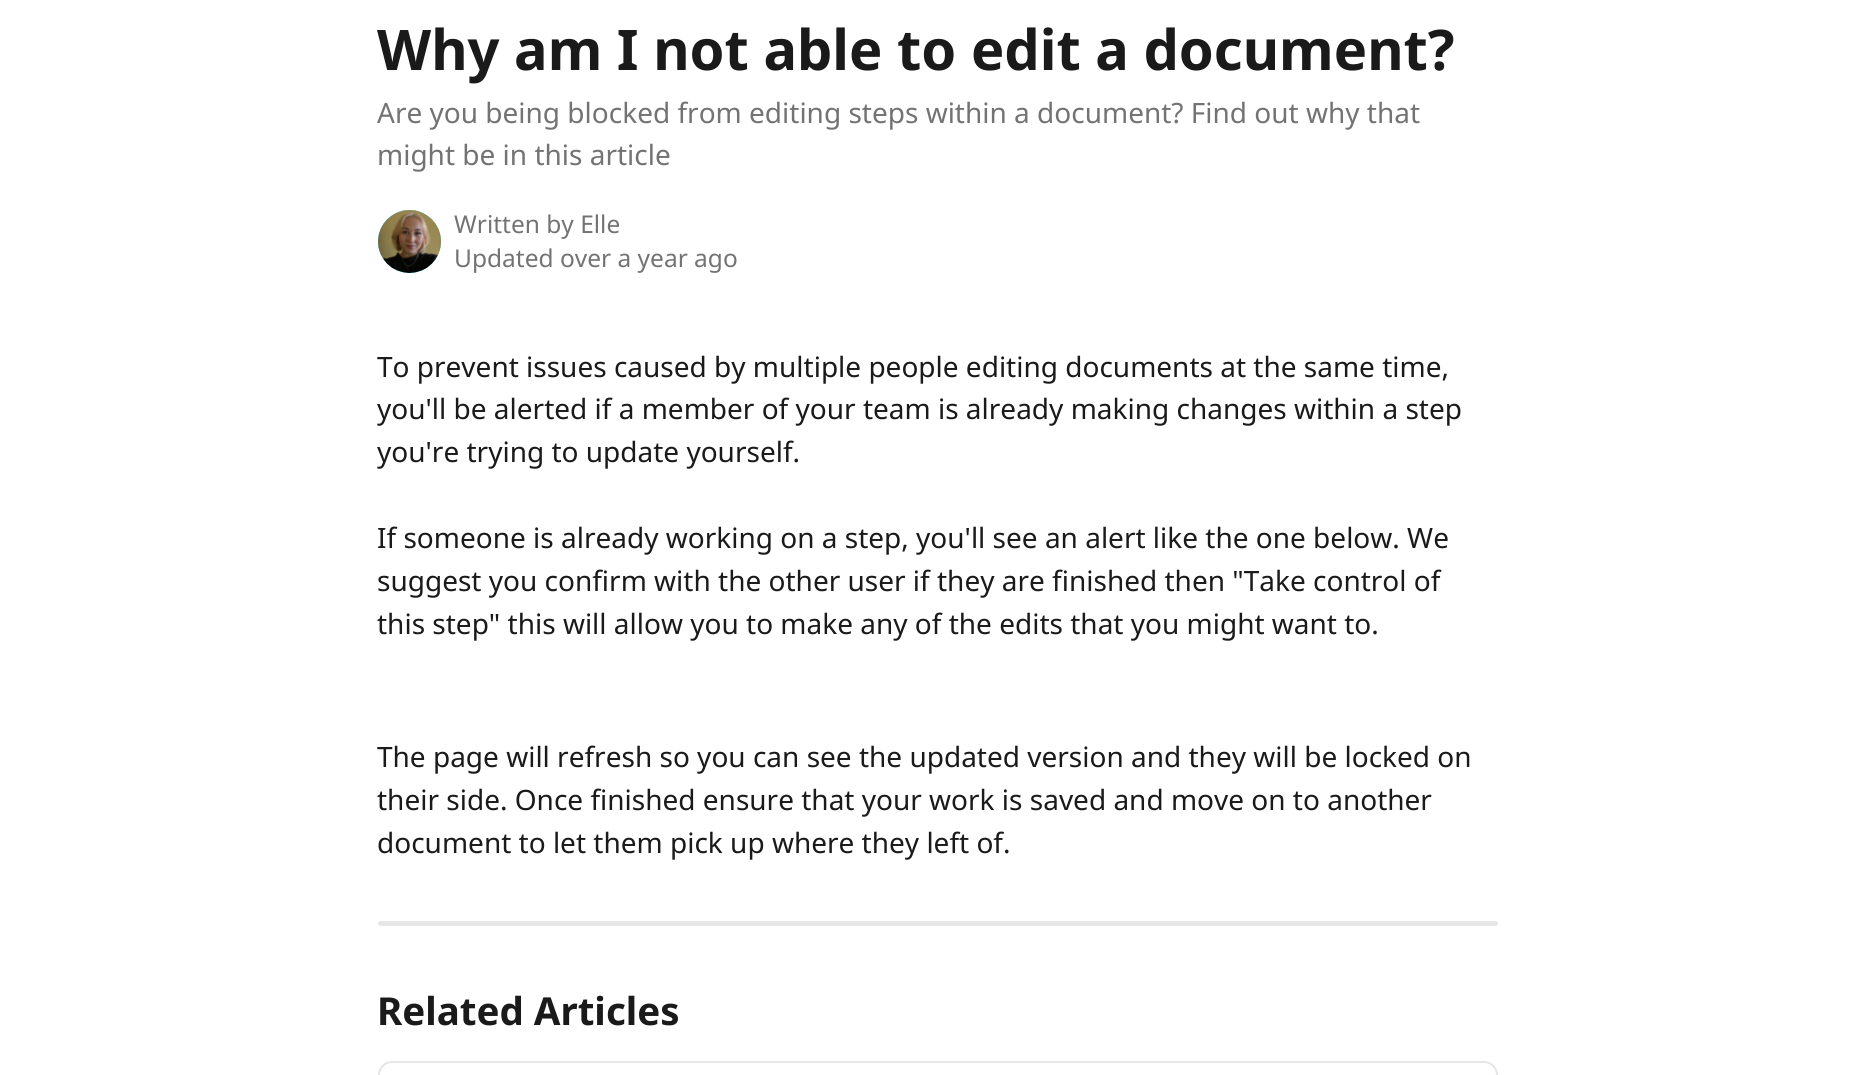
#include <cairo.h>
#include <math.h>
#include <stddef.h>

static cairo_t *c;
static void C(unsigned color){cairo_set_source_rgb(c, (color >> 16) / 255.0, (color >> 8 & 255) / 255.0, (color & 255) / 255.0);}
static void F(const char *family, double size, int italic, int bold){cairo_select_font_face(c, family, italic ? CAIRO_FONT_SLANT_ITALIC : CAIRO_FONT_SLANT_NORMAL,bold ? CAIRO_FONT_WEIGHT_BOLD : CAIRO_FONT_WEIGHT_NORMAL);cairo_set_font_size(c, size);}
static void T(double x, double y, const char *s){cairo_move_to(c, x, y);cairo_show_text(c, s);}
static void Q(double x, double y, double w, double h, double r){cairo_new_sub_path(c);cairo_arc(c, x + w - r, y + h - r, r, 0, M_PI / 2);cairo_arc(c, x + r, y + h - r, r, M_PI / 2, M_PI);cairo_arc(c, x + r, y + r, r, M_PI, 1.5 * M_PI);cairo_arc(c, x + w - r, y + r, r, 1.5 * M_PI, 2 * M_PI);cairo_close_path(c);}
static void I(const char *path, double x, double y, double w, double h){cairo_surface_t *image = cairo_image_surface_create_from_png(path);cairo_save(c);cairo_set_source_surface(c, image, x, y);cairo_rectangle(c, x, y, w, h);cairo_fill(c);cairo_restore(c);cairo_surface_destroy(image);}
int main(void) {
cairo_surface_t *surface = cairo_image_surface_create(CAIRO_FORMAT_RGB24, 1873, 1075);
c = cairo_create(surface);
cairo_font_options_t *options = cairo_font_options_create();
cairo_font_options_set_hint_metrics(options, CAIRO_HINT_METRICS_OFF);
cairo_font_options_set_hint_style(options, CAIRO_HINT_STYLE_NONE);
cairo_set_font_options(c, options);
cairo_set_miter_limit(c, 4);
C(0xffffff);
cairo_paint(c);
F("Noto Sans",56,0,1);
C(0x1a1a1a);
T(377,70,"Why am I not able to edit a document?");
F("Noto Sans",28,0,0);
C(0x737373);
T(377,123,"Are you being blocked from editing steps within a document? Find out why that");
T(377,165,"might be in this article");
C(0x3ccdcd);
cairo_new_path(c);
cairo_arc(c,409.5,241.5,31.5,0,2 * M_PI);
cairo_fill(c);
I("1.png",378,210,63,63);
F("Noto Sans",24.5,0,0);
C(0x737373);
T(454,233,"Written by Elle");
T(454,267,"Updated over a year ago");
F("Noto Sans",28,0,0);
C(0x1a1a1a);
T(377,377,"To prevent issues caused by multiple people editing documents at the same time,");
T(377,419,"you'll be alerted if a member of your team is already making changes within a step");
T(377,462,"you're trying to update yourself.");
T(377,548,"If someone is already working on a step, you'll see an alert like the one below. We");
T(377,591,"suggest you confirm with the other user if they are finished then \"Take control of");
T(377,634,"this step\" this will allow you to make any of the edits that you might want to.");
T(377,767,"The page will refresh so you can see the updated version and they will be locked on");
T(377,810,"their side. Once finished ensure that your work is saved and move on to another");
T(377,853,"document to let them pick up where they left of.");
C(0xe6e6e6);
Q(378,921,1120,5,2.5);
cairo_fill(c);
F("Noto Sans",38.5,0,1);
C(0x1a1a1a);
T(377,1025,"Related Articles");
Q(379,1062,1118,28,13);
C(0xe6e6e6);
cairo_stroke(c);
cairo_surface_write_to_png(surface, "o.png");
cairo_font_options_destroy(options);
cairo_destroy(c);
cairo_surface_destroy(surface);
return 0;
}
